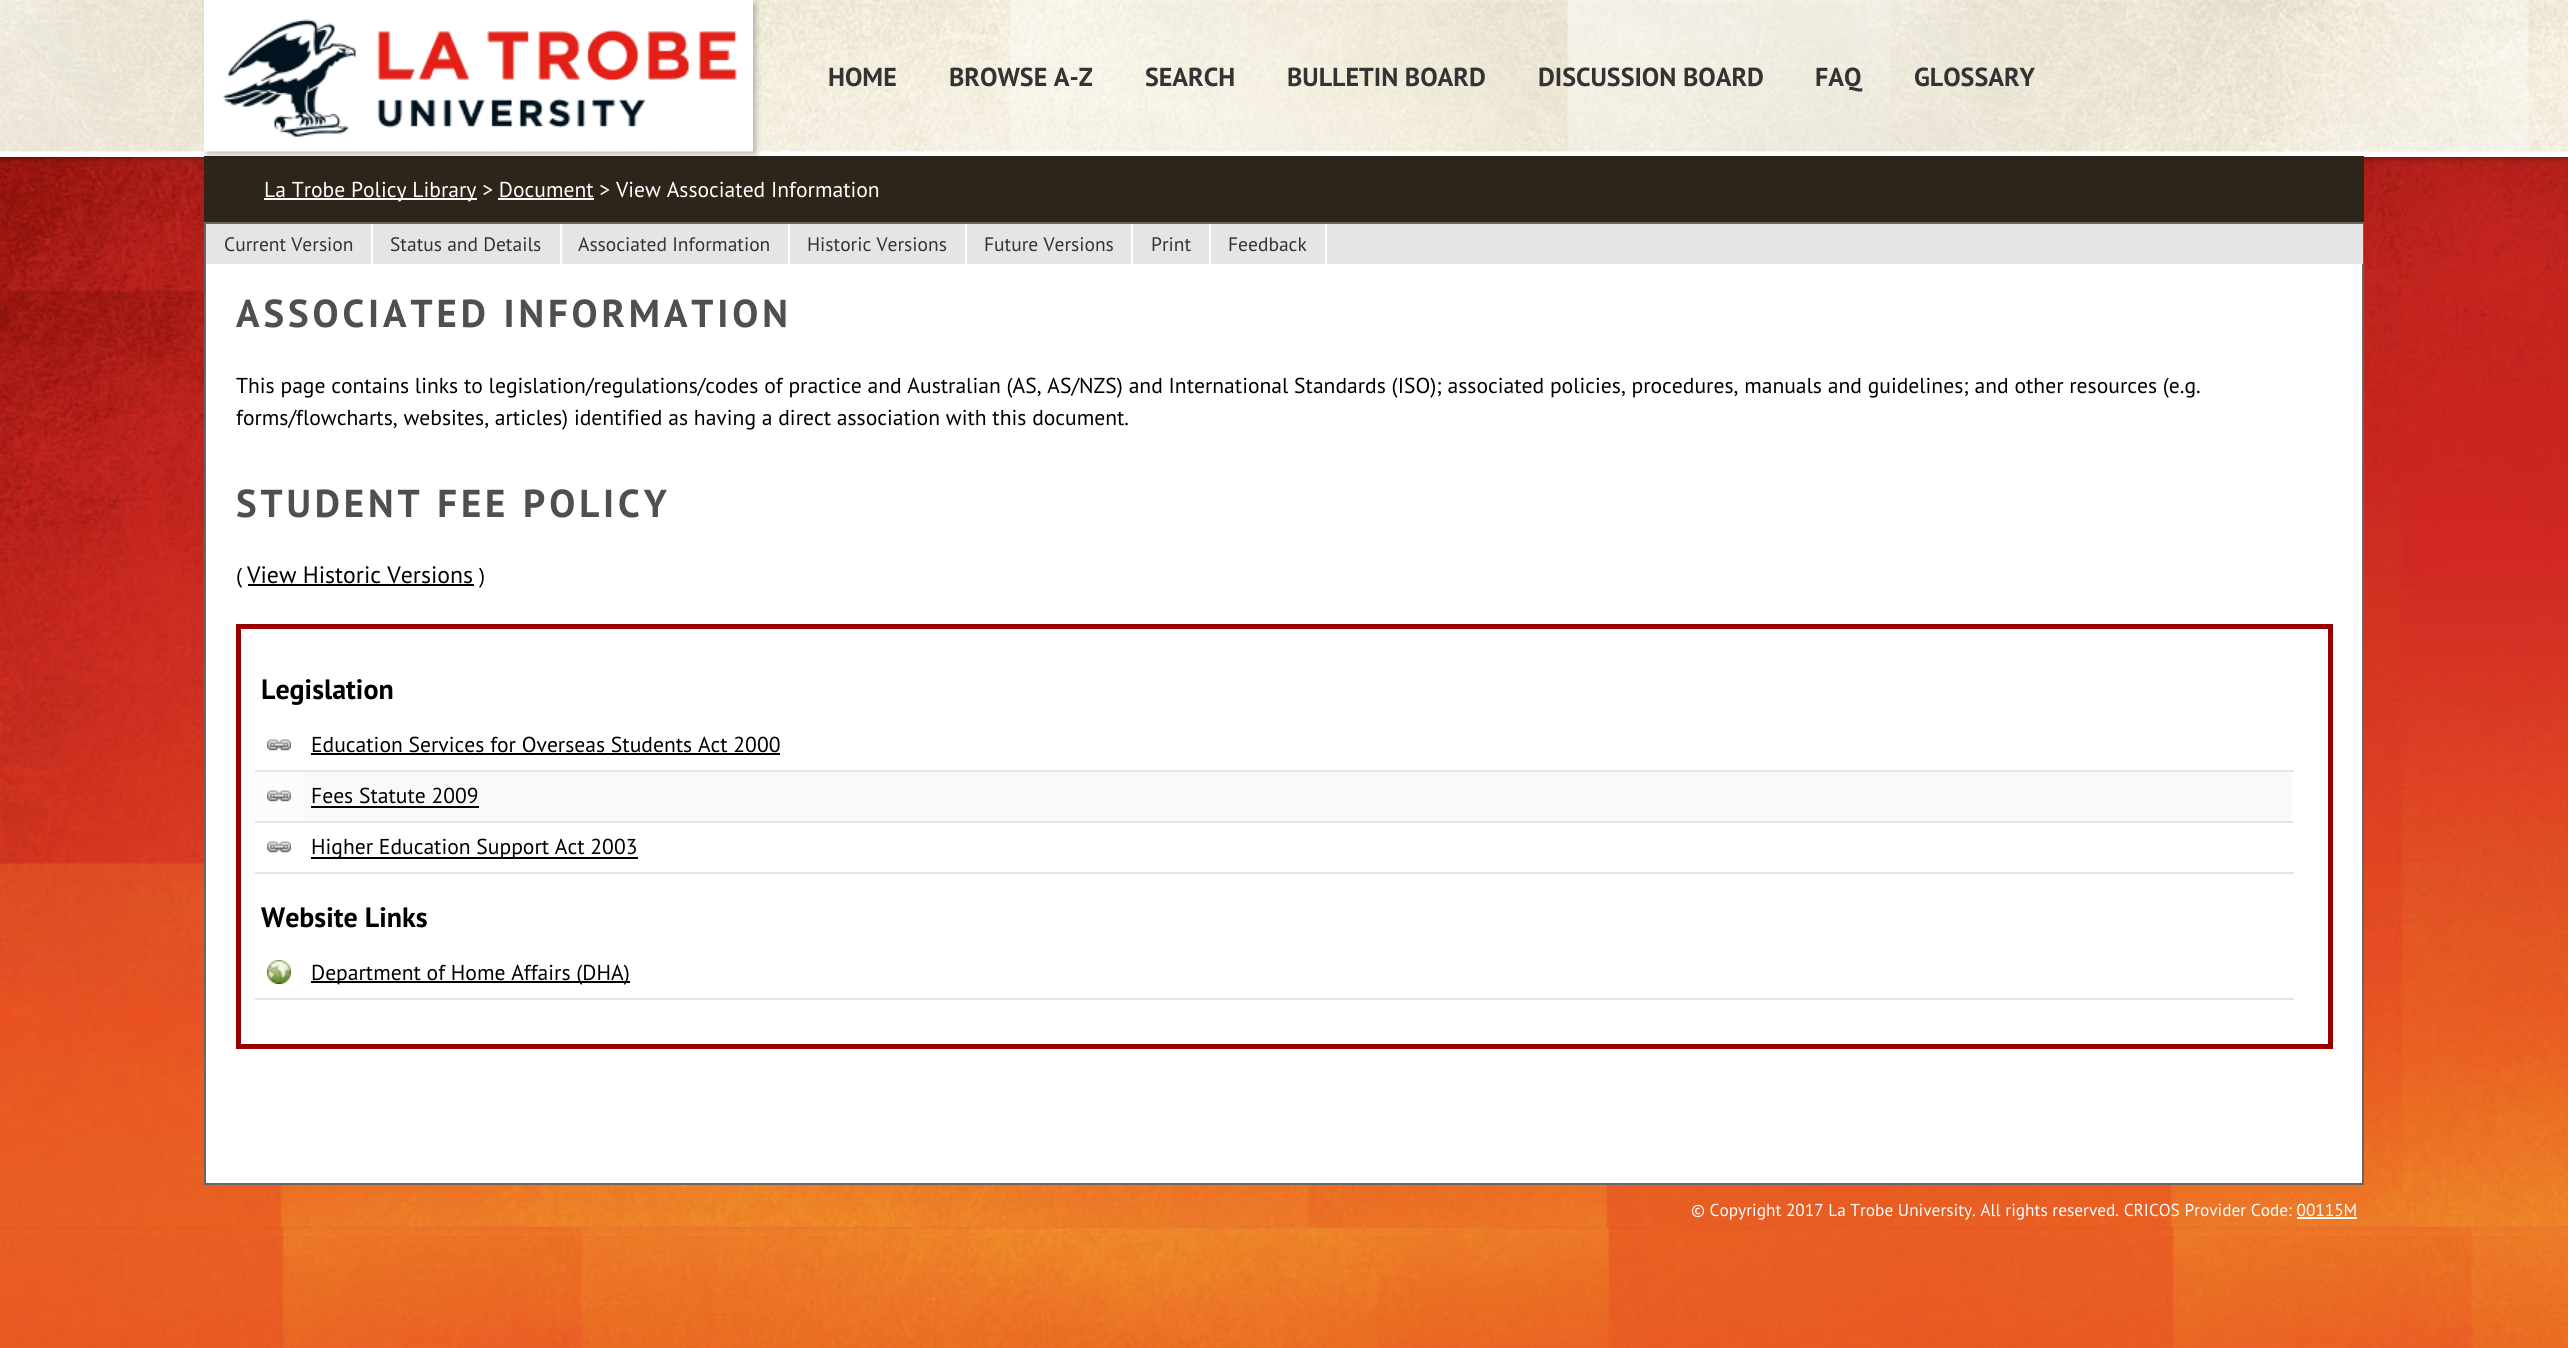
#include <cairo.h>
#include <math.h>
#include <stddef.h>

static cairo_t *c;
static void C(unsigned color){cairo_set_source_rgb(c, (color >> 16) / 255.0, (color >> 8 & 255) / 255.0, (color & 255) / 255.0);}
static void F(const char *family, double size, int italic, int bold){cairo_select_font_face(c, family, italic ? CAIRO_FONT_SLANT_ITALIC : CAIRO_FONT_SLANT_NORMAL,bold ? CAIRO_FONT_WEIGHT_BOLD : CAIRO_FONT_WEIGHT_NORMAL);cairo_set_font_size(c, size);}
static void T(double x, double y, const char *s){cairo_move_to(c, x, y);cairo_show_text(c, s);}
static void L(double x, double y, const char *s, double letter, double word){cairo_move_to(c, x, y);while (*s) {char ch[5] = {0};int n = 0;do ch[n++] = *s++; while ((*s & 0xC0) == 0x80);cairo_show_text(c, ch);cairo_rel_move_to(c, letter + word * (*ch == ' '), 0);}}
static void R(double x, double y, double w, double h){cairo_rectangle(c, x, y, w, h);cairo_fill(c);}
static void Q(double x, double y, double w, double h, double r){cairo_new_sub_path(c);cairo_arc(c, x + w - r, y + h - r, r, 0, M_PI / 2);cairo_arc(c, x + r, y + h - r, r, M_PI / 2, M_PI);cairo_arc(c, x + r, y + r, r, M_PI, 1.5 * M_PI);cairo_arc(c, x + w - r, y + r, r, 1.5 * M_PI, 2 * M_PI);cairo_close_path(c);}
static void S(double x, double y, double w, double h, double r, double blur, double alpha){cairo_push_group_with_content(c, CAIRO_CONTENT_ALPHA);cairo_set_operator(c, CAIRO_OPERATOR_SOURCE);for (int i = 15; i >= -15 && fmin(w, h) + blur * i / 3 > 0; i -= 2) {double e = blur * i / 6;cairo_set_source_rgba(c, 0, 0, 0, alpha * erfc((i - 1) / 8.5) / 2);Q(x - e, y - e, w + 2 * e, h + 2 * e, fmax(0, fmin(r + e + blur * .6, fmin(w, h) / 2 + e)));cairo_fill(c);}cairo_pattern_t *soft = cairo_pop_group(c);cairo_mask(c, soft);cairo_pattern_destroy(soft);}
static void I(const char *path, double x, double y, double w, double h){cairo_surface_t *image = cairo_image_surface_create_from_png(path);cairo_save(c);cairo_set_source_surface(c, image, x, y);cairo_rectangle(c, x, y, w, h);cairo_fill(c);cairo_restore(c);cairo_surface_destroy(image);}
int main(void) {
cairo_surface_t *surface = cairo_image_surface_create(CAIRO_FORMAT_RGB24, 2568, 1348);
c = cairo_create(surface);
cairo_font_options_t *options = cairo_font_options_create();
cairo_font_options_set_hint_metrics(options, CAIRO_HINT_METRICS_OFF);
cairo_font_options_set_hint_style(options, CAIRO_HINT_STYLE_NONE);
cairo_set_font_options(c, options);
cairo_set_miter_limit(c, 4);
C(0xffffff);
cairo_paint(c);
I("1.png",0,157,2568,1191);
C(0x000000);
S(0,3,2568,152,0,4,1);
C(0xffffff);
R(0,151,2568,6);
I("3.png",0,0,2568,152);
C(0x2d251a);
R(204,156,2160,66);
C(0x000000);
S(207,3,549,152,0,3,.25);
I("2.png",204,0,549,152);
F("PT Sans",26,0,1);
C(0x333333);
T(828,86,"HOME");
T(949,86,"BROWSE A-Z");
T(1145,86,"SEARCH");
T(1287,86,"BULLETIN BOARD");
T(1538,86,"DISCUSSION BOARD");
T(1815,86,"FAQ");
T(1914,86,"GLOSSARY");
C(0xffffff);
R(264,198,213,2);
F("PT Sans",21.6,0,0);
T(264,197,"La Trobe Policy Library > Document > View Associated Information");
R(498,198,96,2);
R(206,264,2156,919);
cairo_rectangle(c,205,223,2158,961);
C(0x666666);
cairo_stroke(c);
C(0xe5e5e5);
R(206,224,2157,40);
C(0xffffff);
R(371,224,2,40);
F("PT Sans",19.5,0,0);
C(0x333333);
T(224,251,"Current Version");
C(0xffffff);
R(560,224,2,40);
C(0x333333);
T(390,251,"Status and Details");
C(0xffffff);
R(788,224,2,40);
C(0x333333);
T(578,251,"Associated Information");
C(0xffffff);
R(965,224,2,40);
C(0x333333);
T(807,251,"Historic Versions");
C(0xffffff);
R(1131,224,2,40);
C(0x333333);
T(984,251,"Future Versions");
C(0xffffff);
R(1209,224,2,40);
C(0x333333);
T(1151,251,"Print");
C(0xffffff);
R(1325,224,2,40);
C(0x333333);
T(1228,251,"Feedback");
F("PT Sans",38.9,0,1);
C(0x4f4f4f);
L(236,327,"ASSOCIATED INFORMATION",3.9,0);
F("PT Sans",21.6,0,0);
C(0x000000);
T(236,393,"This page contains links to legislation/regulations/codes of practice and Australian (AS, AS/NZS) and International Standards (ISO); associated policies, procedures, manuals and guidelines; and other resources (e.g.");
T(236,425,"forms/flowcharts, websites, articles) identified as having a direct association with this document.");
F("PT Sans",38.9,0,1);
C(0x4f4f4f);
L(236,517,"STUDENT FEE POLICY",3.9,0);
F("PT Sans",21.6,0,0);
C(0x000000);
T(236,583,"(");
F("PT Sans",23.75,0,0);
T(247,583,"View Historic Versions");
R(248,584,226,2);
F("PT Sans",21.6,0,0);
T(479,583,")");
cairo_rectangle(c,238.5,626.5,2092,420);
C(0x990000);
cairo_set_line_width(c,5);
cairo_stroke(c);
F("PT Sans",28,0,1);
C(0x000000);
T(261,699,"Legislation");
I("4.png",267,739,24,12);
C(0xe5e5e5);
R(255,770,2039,2);
F("PT Sans",21.6,0,0);
C(0x000000);
T(311,752,"Education Services for Overseas Students Act 2000");
R(311,753,469,2);
C(0xfcfcfc);
R(255,772,48,49);
I("5.png",267,790,24,12);
C(0xf9f9f9);
R(303,772,1989,49);
C(0xe5e5e5);
R(255,821,2039,2);
C(0x000000);
T(311,803,"Fees Statute 2009");
R(311,806,168,2);
I("4.png",267,841,24,12);
C(0xe5e5e5);
R(255,872,2039,2);
C(0x000000);
R(311,857,327,2);
T(311,854,"Higher Education Support Act 2003");
F("PT Sans",28,0,1);
T(261,927,"Website Links");
I("6.png",267,960,24,24);
C(0xe5e5e5);
R(255,998,2039,2);
C(0x000000);
R(311,981,319,2);
F("PT Sans",21.6,0,0);
T(311,980,"Department of Home Affairs (DHA)");
F("PT Sans",17.3,0,0);
C(0xffffff);
T(1691,1216,"© Copyright 2017 La Trobe University. All rights reserved. CRICOS Provider Code: 00115M");
R(2297,1217,60,2);
cairo_surface_write_to_png(surface, "o.png");
cairo_font_options_destroy(options);
cairo_destroy(c);
cairo_surface_destroy(surface);
return 0;
}
